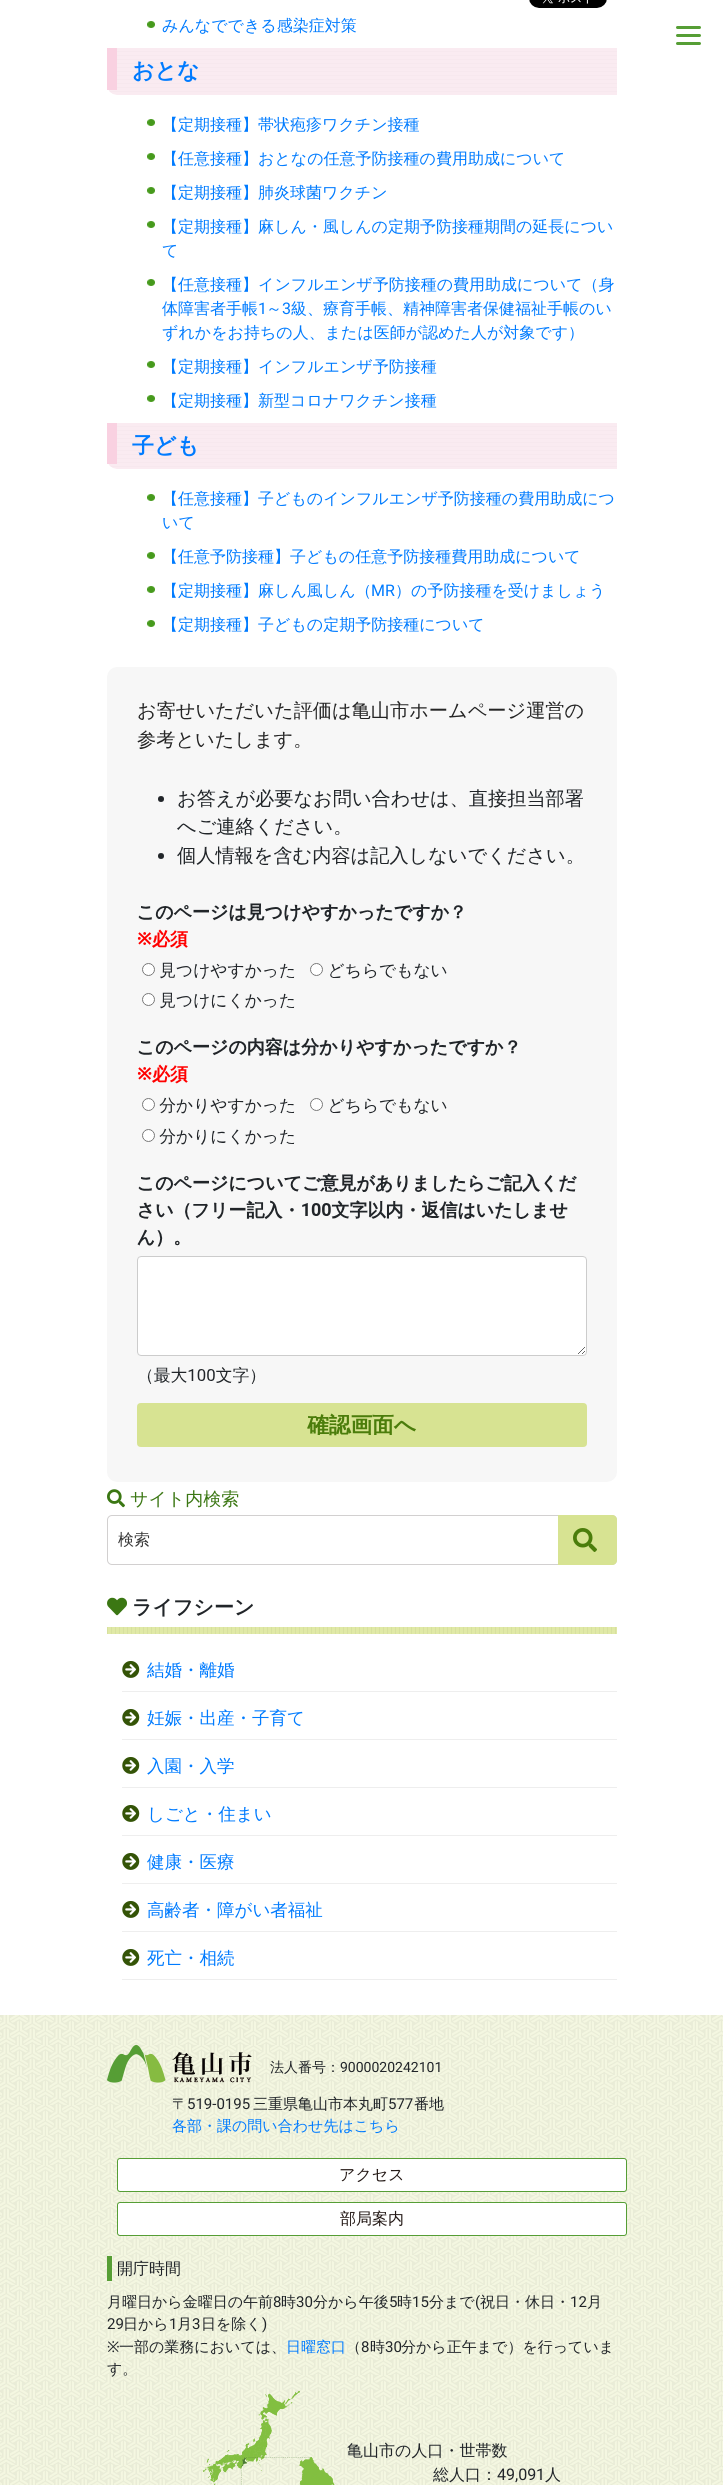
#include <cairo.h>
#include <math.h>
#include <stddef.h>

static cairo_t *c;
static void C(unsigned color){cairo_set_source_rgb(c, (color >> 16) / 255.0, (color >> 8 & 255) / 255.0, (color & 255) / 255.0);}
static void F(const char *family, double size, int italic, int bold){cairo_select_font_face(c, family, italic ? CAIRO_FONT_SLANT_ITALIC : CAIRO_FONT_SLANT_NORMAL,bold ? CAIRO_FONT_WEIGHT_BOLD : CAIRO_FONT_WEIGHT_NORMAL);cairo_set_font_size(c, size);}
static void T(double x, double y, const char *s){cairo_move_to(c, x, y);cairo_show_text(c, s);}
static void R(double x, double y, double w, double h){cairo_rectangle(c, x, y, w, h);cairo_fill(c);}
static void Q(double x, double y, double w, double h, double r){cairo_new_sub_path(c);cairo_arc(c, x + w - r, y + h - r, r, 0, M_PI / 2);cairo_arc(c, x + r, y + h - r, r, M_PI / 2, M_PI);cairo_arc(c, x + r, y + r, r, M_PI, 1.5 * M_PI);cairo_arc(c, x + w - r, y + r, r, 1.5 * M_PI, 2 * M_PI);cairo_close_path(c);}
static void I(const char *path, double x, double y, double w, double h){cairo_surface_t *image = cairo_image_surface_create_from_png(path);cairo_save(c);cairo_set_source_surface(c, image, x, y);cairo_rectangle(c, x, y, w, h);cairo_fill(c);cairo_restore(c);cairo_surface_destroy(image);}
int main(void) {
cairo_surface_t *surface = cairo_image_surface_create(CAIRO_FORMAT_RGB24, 723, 2485);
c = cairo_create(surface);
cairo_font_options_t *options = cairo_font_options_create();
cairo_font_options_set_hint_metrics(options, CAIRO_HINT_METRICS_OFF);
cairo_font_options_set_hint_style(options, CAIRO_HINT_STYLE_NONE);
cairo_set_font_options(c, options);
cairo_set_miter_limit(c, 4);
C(0xffffff);
cairo_paint(c);
I("1.png",529,0,78,8);
I("2.png",147,21,8,7);
F("WenQuanYi Zen Hei Medium",16,0,0);
C(0x007bff);
T(162,31,"みんなでできる感染症対策");
I("3.png",108,48,509,47);
C(0xf9d1e1);
R(107,48,10,42);
F("WenQuanYi Zen Hei",22,0,1);
C(0x007bff);
T(132,78,"おとな");
I("2.png",147,119,8,7);
F("WenQuanYi Zen Hei Medium",16,0,0);
T(162,130,"【定期接種】帯状疱疹ワクチン接種");
I("2.png",147,153,8,7);
T(162,164,"【任意接種】おとなの任意予防接種の費用助成について");
I("2.png",147,187,8,7);
T(162,198,"【定期接種】肺炎球菌ワクチン");
I("2.png",147,221,8,7);
T(162,232,"【定期接種】麻しん・風しんの定期予防接種期間の延長につい");
T(162,256,"て");
I("2.png",147,279,8,7);
T(162,290,"【任意接種】インフルエンザ予防接種の費用助成について（身");
T(162,314,"体障害者手帳");
F("Roboto",16,0,0);
T(258,314,"1");
F("WenQuanYi Zen Hei Medium",16,0,0);
T(266,314,"～");
F("Roboto",16,0,0);
T(282,314,"3");
F("WenQuanYi Zen Hei Medium",16,0,0);
T(291,314,"級、療育手帳、精神障害者保健福祉手帳のい");
T(162,338,"ずれかをお持ちの人、または医師が認めた人が対象です）");
I("2.png",147,361,8,7);
T(162,372,"【定期接種】インフルエンザ予防接種");
I("2.png",147,395,8,7);
T(162,406,"【定期接種】新型コロナワクチン接種");
I("4.png",108,423,509,46);
C(0xf9d1e1);
R(107,423,10,41);
F("WenQuanYi Zen Hei",22,0,1);
C(0x007bff);
T(132,453,"子ども");
I("2.png",147,494,8,7);
F("WenQuanYi Zen Hei Medium",16,0,0);
T(162,504,"【任意接種】子どものインフルエンザ予防接種の費用助成につ");
T(162,528,"いて");
I("2.png",147,552,8,7);
T(162,562,"【任意予防接種】子どもの任意予防接種費用助成について");
I("2.png",147,586,8,7);
T(162,596,"【定期接種】麻しん風しん（");
F("Roboto",16,0,0);
T(371,596,"MR");
F("WenQuanYi Zen Hei Medium",16,0,0);
T(395,596,"）の予防接種を受けましょう");
I("2.png",147,620,8,7);
T(162,630,"【定期接種】子どもの定期予防接種について");
I("5.png",107,667,510,815);
I("6.png",107,1489,18,19);
F("WenQuanYi Zen Hei Medium",18,0,0);
C(0x3b7713);
T(130,1505,"サイト内検索");
Q(107.5,1515.5,509,49,4.5);
C(0xd2d0d0);
cairo_set_line_width(c,1);
cairo_stroke(c);
F("WenQuanYi Zen Hei Medium",16,0,0);
C(0x383838);
T(118,1545,"検索");
C(0xd7e392);
cairo_new_path(c);
cairo_move_to(c,558,1515);
cairo_line_to(c,612,1515);
cairo_curve_to(c,615,1515,617,1517,617,1520);
cairo_line_to(c,617,1560);
cairo_curve_to(c,617,1563,615,1565,612,1565);
cairo_line_to(c,558,1565);
cairo_close_path(c);
cairo_fill(c);
I("7.png",573,1528,24,24);
I("8.png",107,1627,510,7);
I("9.png",107,1597,20,19);
F("WenQuanYi Zen Hei",20,0,1);
C(0x212529);
T(132,1614,"ライフシーン");
C(0xeeeeee);
R(122,1691,495,1);
I("10.png",122,1661,18,17);
F("WenQuanYi Zen Hei Medium",17.5,0,0);
C(0x007bff);
T(147,1676,"結婚・離婚");
C(0xeeeeee);
R(122,1739,495,1);
I("10.png",122,1709,18,17);
C(0x007bff);
T(147,1724,"妊娠・出産・子育て");
C(0xeeeeee);
R(122,1787,495,1);
I("10.png",122,1757,18,17);
C(0x007bff);
T(147,1772,"入園・入学");
C(0xeeeeee);
R(122,1835,495,1);
I("10.png",122,1805,18,17);
C(0x007bff);
T(147,1820,"しごと・住まい");
C(0xeeeeee);
R(122,1883,495,1);
I("10.png",122,1853,18,17);
C(0x007bff);
T(147,1868,"健康・医療");
C(0xeeeeee);
R(122,1931,495,1);
I("10.png",122,1901,18,17);
C(0x007bff);
T(147,1916,"高齢者・障がい者福祉");
C(0xeeeeee);
R(122,1979,495,1);
I("10.png",122,1949,18,17);
C(0x007bff);
T(147,1964,"死亡・相続");
C(0x569e35);
Q(676,34,25,3,1.5);
cairo_fill(c);
Q(676,26,25,3,1.5);
cairo_fill(c);
Q(676,42,25,3,1.5);
cairo_fill(c);
I("11.png",0,2015,723,470);
I("12.png",107,2045,145,38);
F("WenQuanYi Zen Hei Medium",14,0,0);
C(0x212529);
T(270,2072,"法人番号：");
F("Roboto",14,0,0);
T(340,2072,"9000020242101");
F("WenQuanYi Zen Hei Medium",15,0,0);
T(172,2109,"〒");
F("Roboto",15,0,0);
T(187,2109,"519-0195");
F("WenQuanYi Zen Hei Medium",15,0,0);
T(253,2109,"三重県亀山市本丸町");
F("Roboto",15,0,0);
T(388,2109,"577");
F("WenQuanYi Zen Hei Medium",15,0,0);
T(414,2109,"番地");
C(0x007bff);
T(172,2131,"各部・課の問い合わせ先はこちら");
C(0xffffff);
Q(117.5,2158.5,509,33,2.5);
cairo_fill_preserve(c);
C(0x569e35);
cairo_stroke(c);
F("WenQuanYi Zen Hei Medium",16,0,0);
C(0x231815);
T(339,2180,"アクセス");
C(0xffffff);
Q(117.5,2202.5,509,33,2.5);
cairo_fill_preserve(c);
C(0x569e35);
cairo_stroke(c);
C(0x231815);
T(340,2224,"部局案内");
C(0x569e35);
R(107,2256,5,25);
C(0x212529);
T(117,2274,"開庁時間");
F("WenQuanYi Zen Hei Medium",15,0,0);
T(107,2307,"月曜日から金曜日の午前");
F("Roboto",15,0,0);
T(273,2307,"8");
F("WenQuanYi Zen Hei Medium",15,0,0);
T(281,2307,"時");
F("Roboto",15,0,0);
T(296,2307,"30");
F("WenQuanYi Zen Hei Medium",15,0,0);
T(313,2307,"分から午後");
F("Roboto",15,0,0);
T(389,2307,"5");
F("WenQuanYi Zen Hei Medium",15,0,0);
T(397,2307,"時");
F("Roboto",15,0,0);
T(412,2307,"15");
F("WenQuanYi Zen Hei Medium",15,0,0);
T(429,2307,"分まで");
F("Roboto",15,0,0);
T(475,2307,"(");
F("WenQuanYi Zen Hei Medium",15,0,0);
T(480,2307,"祝日・休日・");
F("Roboto",15,0,0);
T(570,2307,"12");
F("WenQuanYi Zen Hei Medium",15,0,0);
T(587,2307,"月");
F("Roboto",15,0,0);
T(107,2329,"29");
F("WenQuanYi Zen Hei Medium",15,0,0);
T(123,2329,"日から");
F("Roboto",15,0,0);
T(169,2329,"1");
F("WenQuanYi Zen Hei Medium",15,0,0);
T(177,2329,"月");
F("Roboto",15,0,0);
T(192,2329,"3");
F("WenQuanYi Zen Hei Medium",15,0,0);
T(201,2329,"日を除く");
F("Roboto",15,0,0);
T(262,2329,")");
F("Noto Sans",15,0,0);
T(107,2352,"※");
F("WenQuanYi Zen Hei Medium",15,0,0);
T(119,2352,"一部の業務においては、");
C(0x007bff);
T(286,2352,"日曜窓口");
C(0x212529);
T(346,2352,"（");
F("Roboto",15,0,0);
T(361,2352,"8");
F("WenQuanYi Zen Hei Medium",15,0,0);
T(370,2352,"時");
F("Roboto",15,0,0);
T(385,2352,"30");
F("WenQuanYi Zen Hei Medium",15,0,0);
T(401,2352,"分から正午まで）を行っていま");
T(107,2374,"す。");
I("13.png",203,2391,132,94);
F("WenQuanYi Zen Hei Medium",16,0,0);
T(347,2456,"亀山市の人口・世帯数");
T(433,2480,"総人口：");
F("Roboto",16,0,0);
T(497,2480,"49,091");
F("WenQuanYi Zen Hei Medium",16,0,0);
T(545,2480,"人");
cairo_surface_write_to_png(surface, "o.png");
cairo_font_options_destroy(options);
cairo_destroy(c);
cairo_surface_destroy(surface);
return 0;
}
